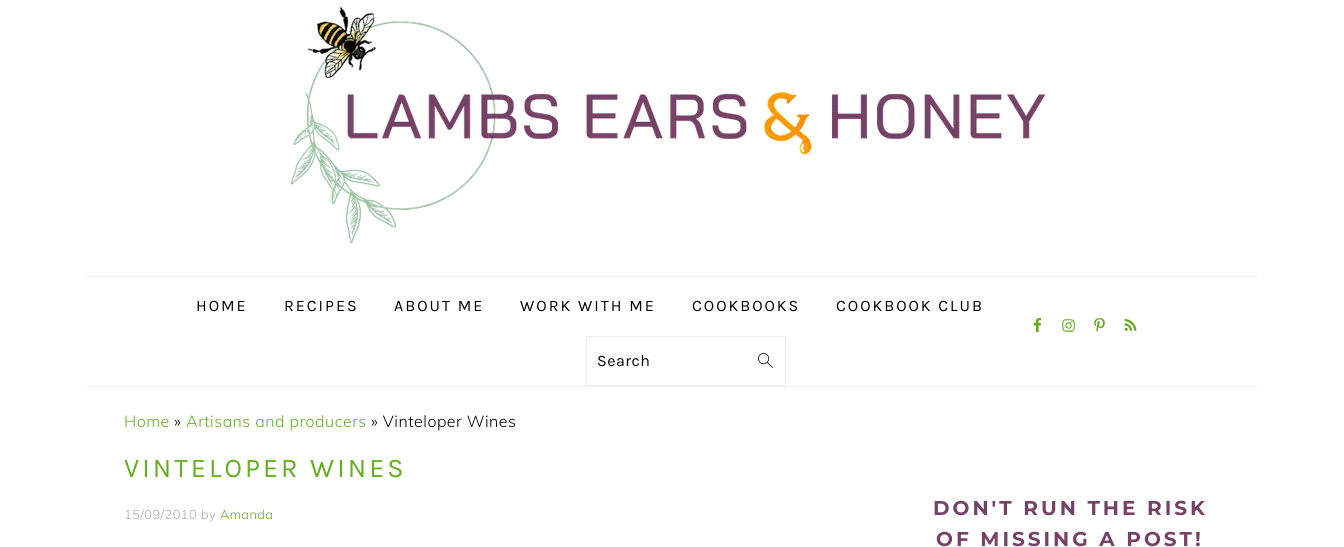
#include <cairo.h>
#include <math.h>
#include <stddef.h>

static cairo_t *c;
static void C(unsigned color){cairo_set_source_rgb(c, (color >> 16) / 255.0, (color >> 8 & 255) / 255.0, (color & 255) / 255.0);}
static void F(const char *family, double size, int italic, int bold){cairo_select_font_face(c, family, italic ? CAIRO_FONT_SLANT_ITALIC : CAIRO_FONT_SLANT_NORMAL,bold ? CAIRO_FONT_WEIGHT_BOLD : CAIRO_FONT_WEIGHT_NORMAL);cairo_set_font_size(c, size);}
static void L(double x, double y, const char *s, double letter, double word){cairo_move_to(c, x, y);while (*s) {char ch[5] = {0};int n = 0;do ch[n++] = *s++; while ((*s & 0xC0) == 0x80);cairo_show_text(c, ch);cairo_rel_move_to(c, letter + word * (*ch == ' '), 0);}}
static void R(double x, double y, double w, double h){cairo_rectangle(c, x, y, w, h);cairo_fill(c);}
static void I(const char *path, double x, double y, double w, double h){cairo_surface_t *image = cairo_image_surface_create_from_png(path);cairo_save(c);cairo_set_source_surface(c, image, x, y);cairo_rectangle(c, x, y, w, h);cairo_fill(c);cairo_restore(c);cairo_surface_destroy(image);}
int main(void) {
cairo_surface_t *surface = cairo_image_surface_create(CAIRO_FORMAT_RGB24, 1344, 547);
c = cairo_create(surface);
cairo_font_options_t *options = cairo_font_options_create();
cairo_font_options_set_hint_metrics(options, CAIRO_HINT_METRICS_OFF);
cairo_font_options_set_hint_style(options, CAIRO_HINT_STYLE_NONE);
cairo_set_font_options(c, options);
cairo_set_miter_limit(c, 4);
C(0xffffff);
cairo_paint(c);
I("1.png",290,6,756,238);
C(0xeeeeee);
R(87,276,1170,1);
R(87,386,1170,1);
F("Karla",16,0,0);
C(0x010101);
L(196,311,"HOME",2,0);
L(284,311,"RECIPES",2,0);
L(394,311,"ABOUT ME",2,0);
L(520,311,"WORK WITH ME",2,0);
L(692,311,"COOKBOOKS",2,0);
L(836,311,"COOKBOOK CLUB",2,0);
I("2.png",1033,318,9,14);
I("3.png",1062,319,13,13);
I("4.png",1094,318,11,14);
I("5.png",1124,319,13,12);
cairo_rectangle(c,586.5,336.5,199,49);
C(0xeeeeee);
cairo_set_line_width(c,1);
cairo_stroke(c);
I("6.png",758,353,15,15);
C(0x010101);
L(597,366,"Search",.5,0);
F("Muli Light",16,0,0);
C(0x64af1e);
L(124,427,"Home",.5,0);
C(0x010101);
L(174,427,"»",.5,0);
C(0x64af1e);
L(186,427,"Artisans and producers",.5,0);
C(0x010101);
L(371,427,"» Vinteloper Wines",.5,0);
F("Karla",27,0,0);
C(0x64af1e);
L(124,477,"VINTELOPER WINES",3,0);
F("Muli Light",12.75,0,0);
C(0xaaaaaa);
L(124,519,"15/09/2010 by",.5,0);
C(0x64af1e);
L(220,519,"Amanda",.5,0);
F("Montserrat",20,0,1);
C(0x754166);
L(933,515,"DON'T RUN THE RISK",3,0);
L(936,546,"OF MISSING A POST!",3,0);
cairo_surface_write_to_png(surface, "o.png");
cairo_font_options_destroy(options);
cairo_destroy(c);
cairo_surface_destroy(surface);
return 0;
}
